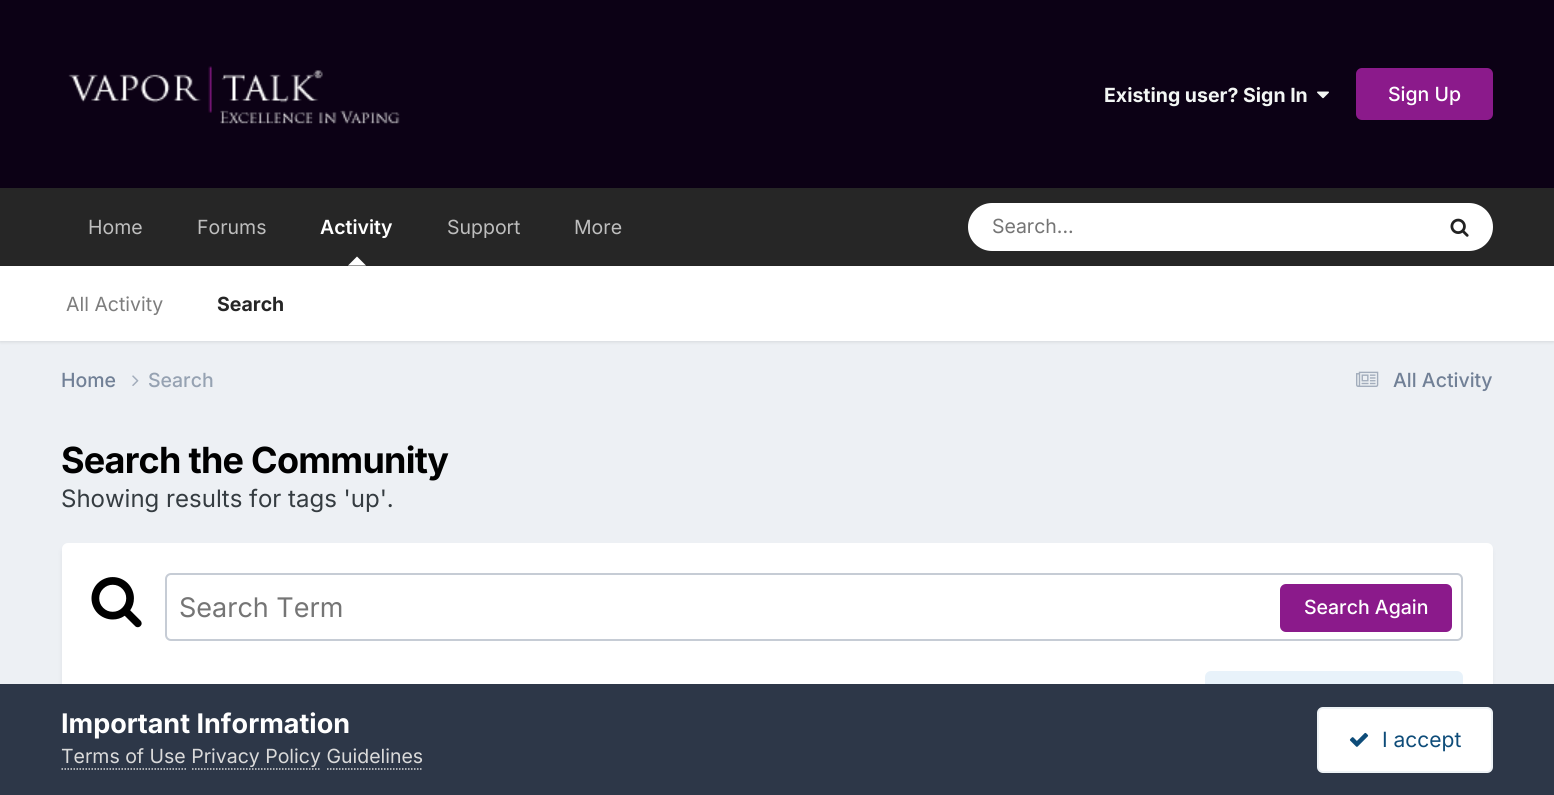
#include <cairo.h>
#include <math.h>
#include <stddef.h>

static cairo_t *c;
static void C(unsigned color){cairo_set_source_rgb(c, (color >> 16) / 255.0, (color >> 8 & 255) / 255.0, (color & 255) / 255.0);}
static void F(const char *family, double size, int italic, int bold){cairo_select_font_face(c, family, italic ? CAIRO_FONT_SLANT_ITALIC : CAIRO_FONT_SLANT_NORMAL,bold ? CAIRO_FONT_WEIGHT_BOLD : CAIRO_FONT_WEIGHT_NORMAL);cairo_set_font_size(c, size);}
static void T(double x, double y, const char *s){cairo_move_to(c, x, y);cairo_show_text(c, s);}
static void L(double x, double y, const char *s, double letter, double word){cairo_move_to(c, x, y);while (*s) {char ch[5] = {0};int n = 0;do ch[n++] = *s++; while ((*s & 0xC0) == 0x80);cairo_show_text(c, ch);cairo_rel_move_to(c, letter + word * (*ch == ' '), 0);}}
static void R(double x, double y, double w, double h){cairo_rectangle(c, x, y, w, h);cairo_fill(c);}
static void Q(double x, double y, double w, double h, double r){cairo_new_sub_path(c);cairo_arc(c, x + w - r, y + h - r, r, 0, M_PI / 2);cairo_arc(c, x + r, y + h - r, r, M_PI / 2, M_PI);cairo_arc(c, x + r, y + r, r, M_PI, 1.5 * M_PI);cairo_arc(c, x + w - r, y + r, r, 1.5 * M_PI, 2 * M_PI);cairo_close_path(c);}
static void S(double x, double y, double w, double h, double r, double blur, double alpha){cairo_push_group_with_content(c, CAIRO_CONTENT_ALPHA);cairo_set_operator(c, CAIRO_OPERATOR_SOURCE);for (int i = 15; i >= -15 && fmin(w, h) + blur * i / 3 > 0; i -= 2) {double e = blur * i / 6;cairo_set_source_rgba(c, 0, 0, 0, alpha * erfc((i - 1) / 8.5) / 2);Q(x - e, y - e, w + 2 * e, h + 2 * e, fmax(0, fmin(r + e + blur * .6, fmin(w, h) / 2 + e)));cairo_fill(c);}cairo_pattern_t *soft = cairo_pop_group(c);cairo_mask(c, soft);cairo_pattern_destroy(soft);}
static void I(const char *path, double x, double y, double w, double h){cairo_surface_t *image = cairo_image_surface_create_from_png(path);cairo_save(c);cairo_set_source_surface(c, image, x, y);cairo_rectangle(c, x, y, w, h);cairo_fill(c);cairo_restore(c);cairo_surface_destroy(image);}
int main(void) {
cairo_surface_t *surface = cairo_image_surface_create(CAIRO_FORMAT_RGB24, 1554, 795);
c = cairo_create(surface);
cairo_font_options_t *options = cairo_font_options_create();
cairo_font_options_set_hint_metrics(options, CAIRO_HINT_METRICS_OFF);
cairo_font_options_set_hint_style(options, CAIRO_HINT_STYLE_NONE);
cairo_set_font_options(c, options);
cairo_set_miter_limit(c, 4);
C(0xedf0f4);
cairo_paint(c);
C(0x0c0115);
R(0,0,1554,188);
I("1.png",68,66,332,58);
F("Inter",19.5,0,1);
C(0xf3f6f4);
T(1104,102,"Existing user? Sign In");
I("2.png",1317,91,12,8);
C(0x8b1a8b);
Q(1356,68,137,52,6);
cairo_fill(c);
F("Inter Medium",19.5,0,0);
C(0xffffff);
T(1388,101,"Sign Up");
C(0x262626);
R(0,188,1554,78);
F("Inter SemiBold",19.5,0,0);
C(0xffffff);
T(320,234,"Activity");
C(0x000000);
S(0,267,1554,75,0,1.5,.1);
C(0xffffff);
cairo_new_path(c);
cairo_move_to(c,366,265.5);
cairo_line_to(c,348,265.5);
cairo_line_to(c,357,256.5);
cairo_close_path(c);
cairo_fill(c);
R(0,266,1554,75);
F("Inter",19.5,0,0);
C(0x7d7d7d);
T(66,311,"All Activity");
F("Inter",19.5,0,1);
C(0x262626);
T(217,311,"Search");
F("Inter",19.5,0,0);
C(0xbebebe);
T(88,234,"Home");
T(197,234,"Forums");
T(447,234,"Support");
T(574,234,"More");
C(0xffffff);
Q(968,203,525,48,24);
cairo_fill(c);
C(0x757575);
T(992,233,"Search...");
I("3.png",1450,218,19,19);
F("Inter Medium",19.5,0,0);
C(0x718096);
T(61,387,"Home");
I("4.png",132,375,7,11);
C(0x96a2b2);
T(148,387,"Search");
I("5.png",1356,371,23,16);
C(0x718096);
T(1393,387,"All Activity");
F("Inter",36,0,1);
C(0x000000);
L(61,473,"Search the Community",-.75,0);
F("Inter",24,0,0);
C(0x353c41);
T(61,507,"Showing results for tags 'up'.");
C(0x2d3748);
S(63,548,1428,204,5,3,.1);
C(0xffffff);
Q(62,543,1431,207,6);
cairo_fill(c);
I("6.png",91,577,51,51);
Q(166,574,1296,66,5);
C(0xc6ccd5);
cairo_stroke(c);
F("Inter",27,0,0);
C(0x757575);
T(179,617,"Search Term");
C(0x8b1a8b);
Q(1280,584,172,48,6);
cairo_fill(c);
F("Inter Medium",19.5,0,0);
C(0xffffff);
T(1304,614,"Search Again");
C(0xe8f2fa);
Q(1205,671,258,48,6);
cairo_fill(c);
C(0x2d3748);
R(0,684,1554,111);
F("Inter",27,0,1);
C(0xffffff);
T(61,733,"Important Information");
F("Inter",19.5,0,0);
C(0xdadada);
T(61,763,"Terms of Use Privacy Policy Guidelines");
cairo_new_path(c);
cairo_move_to(c,61.5,769);
cairo_line_to(c,186,769);
cairo_set_line_width(c,1.5);
cairo_set_dash(c,(double[]){1.5,1.5},2,0);
cairo_stroke(c);
cairo_new_path(c);
cairo_move_to(c,192,769);
cairo_line_to(c,321,769);
cairo_stroke(c);
cairo_new_path(c);
cairo_move_to(c,327,769);
cairo_line_to(c,423,769);
cairo_stroke(c);
C(0xffffff);
Q(1317,707,176,66,6);
cairo_fill(c);
Q(1318,708,174,64,5);
cairo_set_source_rgba(c,0.055,0.298,0.475,0.07);
cairo_set_line_width(c,2);
cairo_set_dash(c,NULL,0,0);
cairo_stroke(c);
I("7.png",1349,732,20,15);
F("Inter",21,0,0);
C(0x0e4c79);
T(1382,747,"I accept");
cairo_surface_write_to_png(surface, "o.png");
cairo_font_options_destroy(options);
cairo_destroy(c);
cairo_surface_destroy(surface);
return 0;
}
